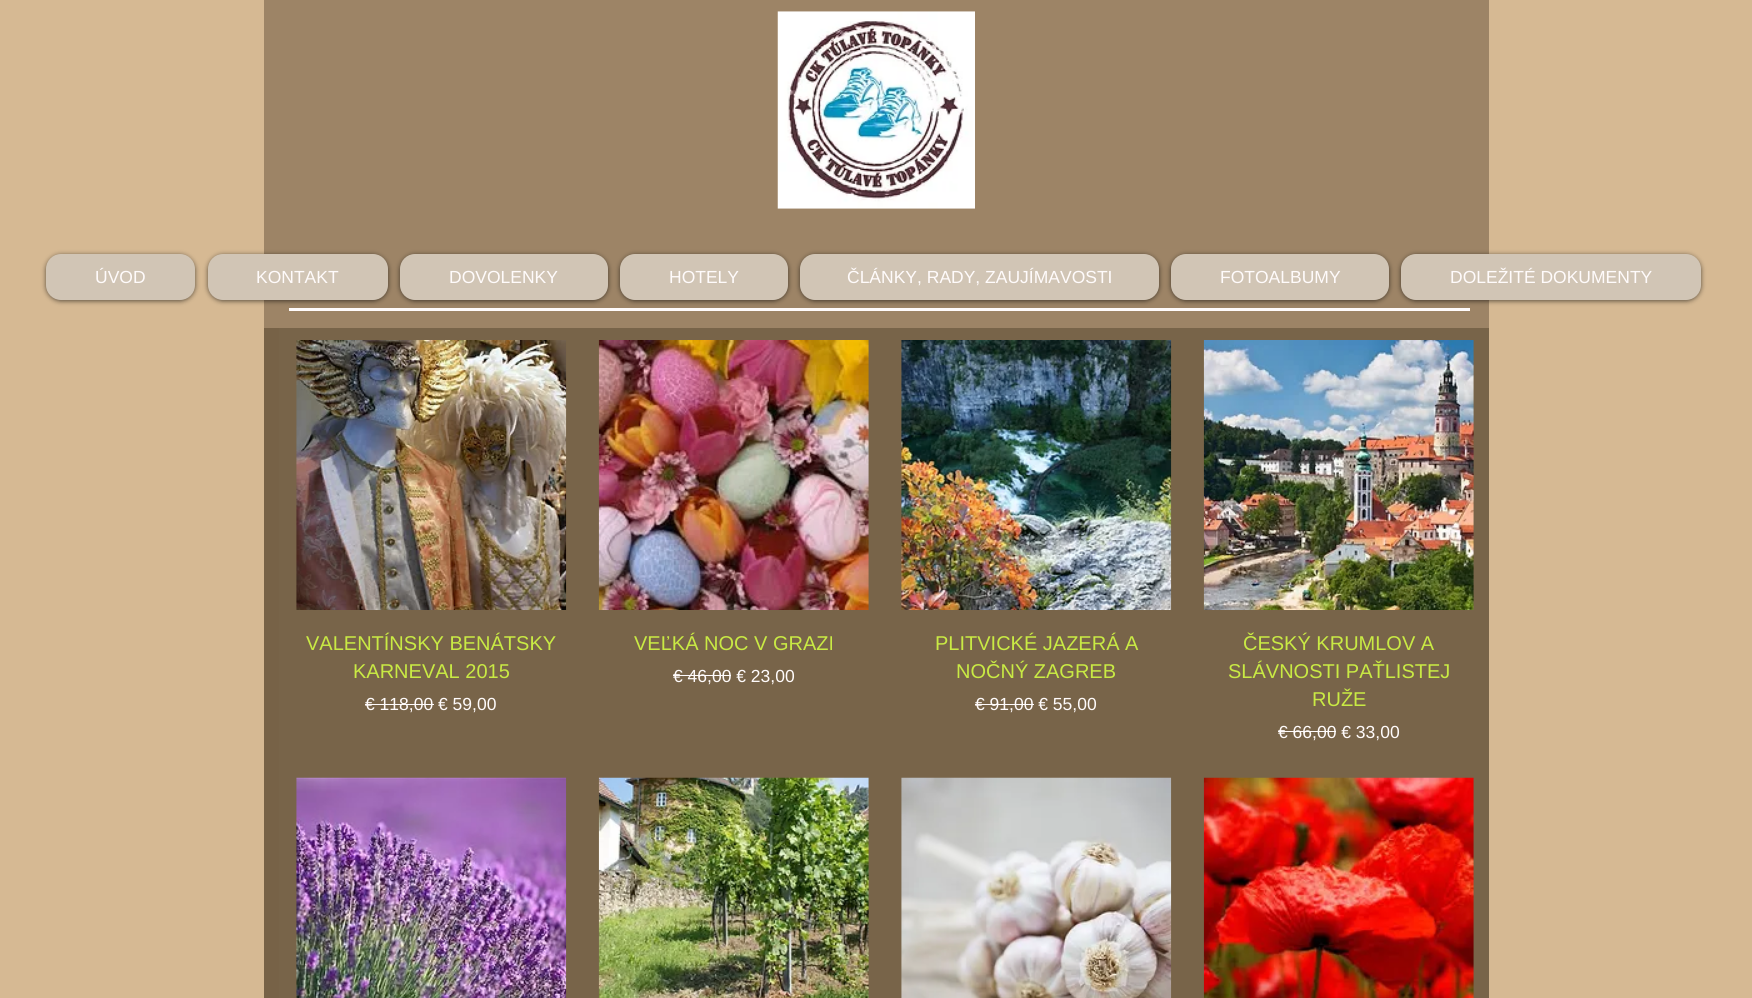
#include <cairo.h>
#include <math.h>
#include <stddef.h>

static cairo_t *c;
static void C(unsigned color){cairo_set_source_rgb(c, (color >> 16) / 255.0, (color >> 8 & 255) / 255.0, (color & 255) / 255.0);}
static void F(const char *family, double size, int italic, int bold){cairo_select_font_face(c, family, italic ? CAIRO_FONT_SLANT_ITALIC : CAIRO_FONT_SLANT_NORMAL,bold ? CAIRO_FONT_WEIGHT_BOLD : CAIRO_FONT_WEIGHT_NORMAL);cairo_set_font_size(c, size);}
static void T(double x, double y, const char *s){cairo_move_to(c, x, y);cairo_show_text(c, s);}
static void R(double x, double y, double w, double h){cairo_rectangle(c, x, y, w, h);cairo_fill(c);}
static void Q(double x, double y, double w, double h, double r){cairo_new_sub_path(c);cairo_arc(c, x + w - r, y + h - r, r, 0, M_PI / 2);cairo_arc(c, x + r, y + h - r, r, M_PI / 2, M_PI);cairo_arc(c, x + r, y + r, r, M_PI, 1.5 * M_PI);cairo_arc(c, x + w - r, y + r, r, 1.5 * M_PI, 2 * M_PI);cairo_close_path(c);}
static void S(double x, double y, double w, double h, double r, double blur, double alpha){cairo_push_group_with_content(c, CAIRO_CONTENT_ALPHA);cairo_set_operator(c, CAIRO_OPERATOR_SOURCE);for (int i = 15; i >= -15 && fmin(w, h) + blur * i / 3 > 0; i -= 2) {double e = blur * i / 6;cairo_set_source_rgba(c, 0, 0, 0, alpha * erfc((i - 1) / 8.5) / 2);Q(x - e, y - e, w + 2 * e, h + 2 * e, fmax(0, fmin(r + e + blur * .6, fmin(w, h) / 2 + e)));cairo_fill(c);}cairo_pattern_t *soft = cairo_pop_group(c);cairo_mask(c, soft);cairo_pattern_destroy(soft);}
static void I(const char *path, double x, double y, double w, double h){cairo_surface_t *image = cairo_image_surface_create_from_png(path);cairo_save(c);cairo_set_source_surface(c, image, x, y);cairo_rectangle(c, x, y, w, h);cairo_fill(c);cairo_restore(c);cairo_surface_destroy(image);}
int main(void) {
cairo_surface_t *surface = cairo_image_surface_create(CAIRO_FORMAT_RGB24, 1752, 998);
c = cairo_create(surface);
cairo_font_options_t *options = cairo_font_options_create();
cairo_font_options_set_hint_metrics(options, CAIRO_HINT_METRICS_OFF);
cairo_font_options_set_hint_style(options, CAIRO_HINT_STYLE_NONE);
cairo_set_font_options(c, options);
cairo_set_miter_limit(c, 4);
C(0xd6b993);
cairo_paint(c);
C(0x9d8466);
R(264,0,1225,328);
I("1.png",777,11,198,198);
C(0x000000);
S(46,255,149,46,15,2.5,.6);
C(0xd1c5b5);
Q(46,254,149,46,15);
cairo_fill(c);
F("Liberation Sans",17.5,0,0);
C(0xfffbfb);
T(95,283,"ÚVOD");
C(0x000000);
S(208,255,180,46,15,2.5,.6);
C(0xd1c5b5);
Q(208,254,180,46,15);
cairo_fill(c);
C(0xfffbfb);
T(256,283,"KONTAKT");
C(0x000000);
S(400,255,208,46,15,2.5,.6);
C(0xd1c5b5);
Q(400,254,208,46,15);
cairo_fill(c);
C(0xfffbfb);
T(449,283,"DOVOLENKY");
C(0x000000);
S(620,255,168,46,15,2.5,.6);
C(0xd1c5b5);
Q(620,254,168,46,15);
cairo_fill(c);
C(0xfffbfb);
T(669,283,"HOTELY");
C(0x000000);
S(800,255,359,46,15,2.5,.6);
C(0xd1c5b5);
Q(800,254,359,46,15);
cairo_fill(c);
C(0xfffbfb);
T(847,283,"ČLÁNKY, RADY, ZAUJÍMAVOSTI");
C(0x000000);
S(1171,255,218,46,15,2.5,.6);
C(0xd1c5b5);
Q(1171,254,218,46,15);
cairo_fill(c);
C(0xfffbfb);
T(1220,283,"FOTOALBUMY");
C(0x000000);
S(1401,255,300,46,15,2.5,.6);
C(0xd1c5b5);
Q(1401,254,300,46,15);
cairo_fill(c);
C(0xfffbfb);
T(1450,283,"DOLEŽITÉ DOKUMENTY");
R(289,308,1181,3);
C(0x776247);
R(264,328,15,670);
C(0x786449);
R(279,328,1210,670);
I("2.png",296,340,271,270);
F("Liberation Sans",20,0,0);
C(0xc9ea44);
T(306,650,"VALENTÍNSKY BENÁTSKY");
T(353,678,"KARNEVAL 2015");
F("Liberation Sans",17.5,0,0);
C(0xfffbfb);
T(365,710,"€ 118,00 € 59,00");
R(365,704,69,1);
I("3.png",598,340,271,270);
F("Liberation Sans",20,0,0);
C(0xc9ea44);
T(634,650,"VEĽKÁ NOC V GRAZI");
F("Liberation Sans",17.5,0,0);
C(0xfffbfb);
T(673,682,"€ 46,00 € 23,00");
R(673,675,58,1);
I("4.png",901,340,271,270);
F("Liberation Sans",20,0,0);
C(0xc9ea44);
T(935,650,"PLITVICKÉ JAZERÁ A");
T(956,678,"NOČNÝ ZAGREB");
F("Liberation Sans",17.5,0,0);
C(0xfffbfb);
T(975,710,"€ 91,00 € 55,00");
R(975,704,59,1);
I("5.png",1203,340,271,270);
F("Liberation Sans",20,0,0);
C(0xc9ea44);
T(1243,650,"ČESKÝ KRUMLOV A");
T(1228,678,"SLÁVNOSTI PAŤLISTEJ");
T(1312,706,"RUŽE");
F("Liberation Sans",17.5,0,0);
C(0xfffbfb);
T(1278,738,"€ 66,00 € 33,00");
R(1278,731,58,1);
I("6.png",296,777,271,221);
I("7.png",598,777,271,221);
I("8.png",901,777,271,221);
I("9.png",1203,777,271,221);
cairo_surface_write_to_png(surface, "o.png");
cairo_font_options_destroy(options);
cairo_destroy(c);
cairo_surface_destroy(surface);
return 0;
}
